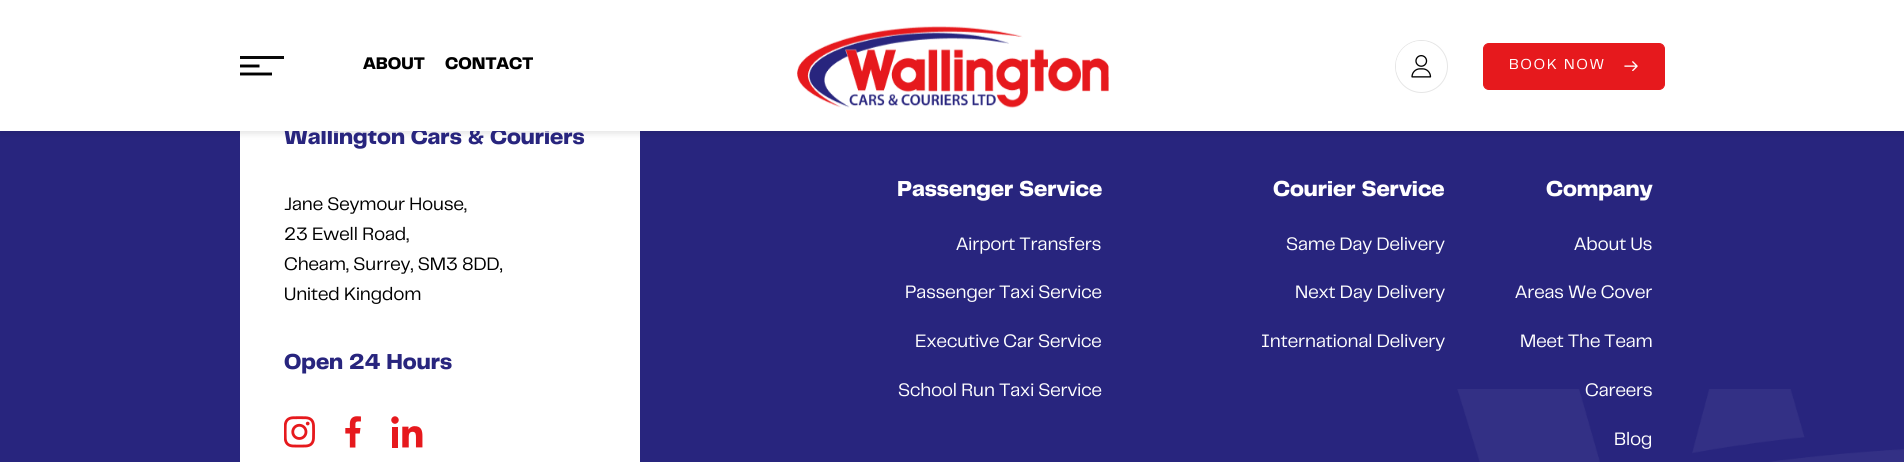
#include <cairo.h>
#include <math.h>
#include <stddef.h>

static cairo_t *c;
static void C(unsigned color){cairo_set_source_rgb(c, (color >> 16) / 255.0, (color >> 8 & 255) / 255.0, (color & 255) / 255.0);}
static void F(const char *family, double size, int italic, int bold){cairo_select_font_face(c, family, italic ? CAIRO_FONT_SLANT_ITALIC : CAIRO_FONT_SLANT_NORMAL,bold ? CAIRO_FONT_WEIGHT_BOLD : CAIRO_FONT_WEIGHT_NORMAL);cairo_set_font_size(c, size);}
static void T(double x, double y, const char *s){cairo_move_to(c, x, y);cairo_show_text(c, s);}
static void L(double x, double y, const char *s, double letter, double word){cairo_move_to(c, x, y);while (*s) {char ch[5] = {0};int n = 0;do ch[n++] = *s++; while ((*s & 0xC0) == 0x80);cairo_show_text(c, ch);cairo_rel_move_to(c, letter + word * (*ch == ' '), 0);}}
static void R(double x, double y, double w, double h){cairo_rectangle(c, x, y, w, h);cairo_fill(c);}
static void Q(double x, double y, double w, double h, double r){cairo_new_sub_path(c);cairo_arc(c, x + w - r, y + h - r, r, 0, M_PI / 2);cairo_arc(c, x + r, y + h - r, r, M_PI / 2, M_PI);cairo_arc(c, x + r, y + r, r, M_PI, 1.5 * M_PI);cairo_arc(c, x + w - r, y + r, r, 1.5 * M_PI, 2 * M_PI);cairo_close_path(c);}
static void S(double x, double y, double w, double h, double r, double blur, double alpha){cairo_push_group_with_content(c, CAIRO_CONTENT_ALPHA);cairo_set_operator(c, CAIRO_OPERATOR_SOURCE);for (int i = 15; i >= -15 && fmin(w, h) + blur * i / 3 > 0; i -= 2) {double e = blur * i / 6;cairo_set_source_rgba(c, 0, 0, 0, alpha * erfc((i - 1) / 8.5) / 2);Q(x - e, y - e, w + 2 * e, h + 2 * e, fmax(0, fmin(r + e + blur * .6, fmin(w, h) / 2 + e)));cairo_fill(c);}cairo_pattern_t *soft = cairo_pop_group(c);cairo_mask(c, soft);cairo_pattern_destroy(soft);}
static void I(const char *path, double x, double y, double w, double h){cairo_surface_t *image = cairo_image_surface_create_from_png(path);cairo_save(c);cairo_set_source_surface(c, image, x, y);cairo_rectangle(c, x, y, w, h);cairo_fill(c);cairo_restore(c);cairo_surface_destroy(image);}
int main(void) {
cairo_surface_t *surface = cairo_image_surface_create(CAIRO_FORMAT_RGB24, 1904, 462);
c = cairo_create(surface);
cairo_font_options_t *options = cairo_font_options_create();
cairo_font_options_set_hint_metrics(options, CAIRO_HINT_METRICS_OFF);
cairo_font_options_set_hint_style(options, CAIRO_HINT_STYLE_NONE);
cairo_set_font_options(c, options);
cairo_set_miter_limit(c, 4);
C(0x28257e);
cairo_paint(c);
C(0xffffff);
R(240,131,400,331);
C(0x000000);
S(0,3,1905,131,0,3,.1);
F("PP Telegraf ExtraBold",22.5,0,0);
C(0x28257e);
T(284,144,"Wallington Cars & Couriers");
C(0xffffff);
R(0,0,1904,131);
C(0x090909);
R(240,56,44,3);
cairo_new_path(c);
cairo_move_to(c,259.5,66);
cairo_line_to(c,240,66);
cairo_move_to(c,272,74);
cairo_line_to(c,240,74);
C(0x000000);
cairo_set_line_width(c,2.9);
cairo_stroke(c);
F("PP Telegraf ExtraBold",17.5,0,0);
T(363,69,"ABOUT");
T(445,69,"CONTACT");
I("1.png",797,26,312,82);
cairo_arc(c,1421.5,66.5,26,0,2 * M_PI);
C(0xe6e6e6);
cairo_set_line_width(c,1);
cairo_stroke(c);
C(0xffffff);
cairo_arc(c,1421,66,25,0,2 * M_PI);
cairo_fill(c);
I("2.png",1411,55,21,23);
C(0xe6191d);
Q(1483.5,43.5,181,46,5.5);
cairo_fill_preserve(c);
cairo_stroke(c);
F("PP Telegraf",15,0,0);
C(0xffffff);
L(1509,69,"BOOK NOW",2,0);
I("3.png",1624,61,14,10);
F("PP Telegraf",18.75,0,0);
C(0x000000);
T(284,210,"Jane Seymour House,");
T(284,240,"23 Ewell Road,");
T(284,270,"Cheam, Surrey, SM3 8DD,");
T(284,300,"United Kingdom");
F("PP Telegraf ExtraBold",22.5,0,0);
C(0x28257e);
T(284,369,"Open 24 Hours");
I("4.png",284,416,31,32);
I("5.png",345,416,16,32);
I("6.png",391,416,32,32);
C(0xffffff);
T(897,196,"Passenger Service");
F("PP Telegraf",18.75,0,0);
T(956,250,"Airport Transfers");
T(905,298,"Passenger Taxi Service");
T(915,347,"Executive Car Service");
T(898,396,"School Run Taxi Service");
F("PP Telegraf ExtraBold",22.5,0,0);
T(1273,196,"Courier Service");
F("PP Telegraf",18.75,0,0);
T(1286,250,"Same Day Delivery");
T(1295,298,"Next Day Delivery");
T(1261,347,"International Delivery");
F("PP Telegraf ExtraBold",22.5,0,0);
T(1546,196,"Company");
F("PP Telegraf",18.75,0,0);
T(1574,250,"About Us");
T(1515,298,"Areas We Cover");
T(1520,347,"Meet The Team");
I("7.png",1457,389,447,73);
T(1585,396,"Careers");
T(1614,445,"Blog");
cairo_surface_write_to_png(surface, "o.png");
cairo_font_options_destroy(options);
cairo_destroy(c);
cairo_surface_destroy(surface);
return 0;
}
